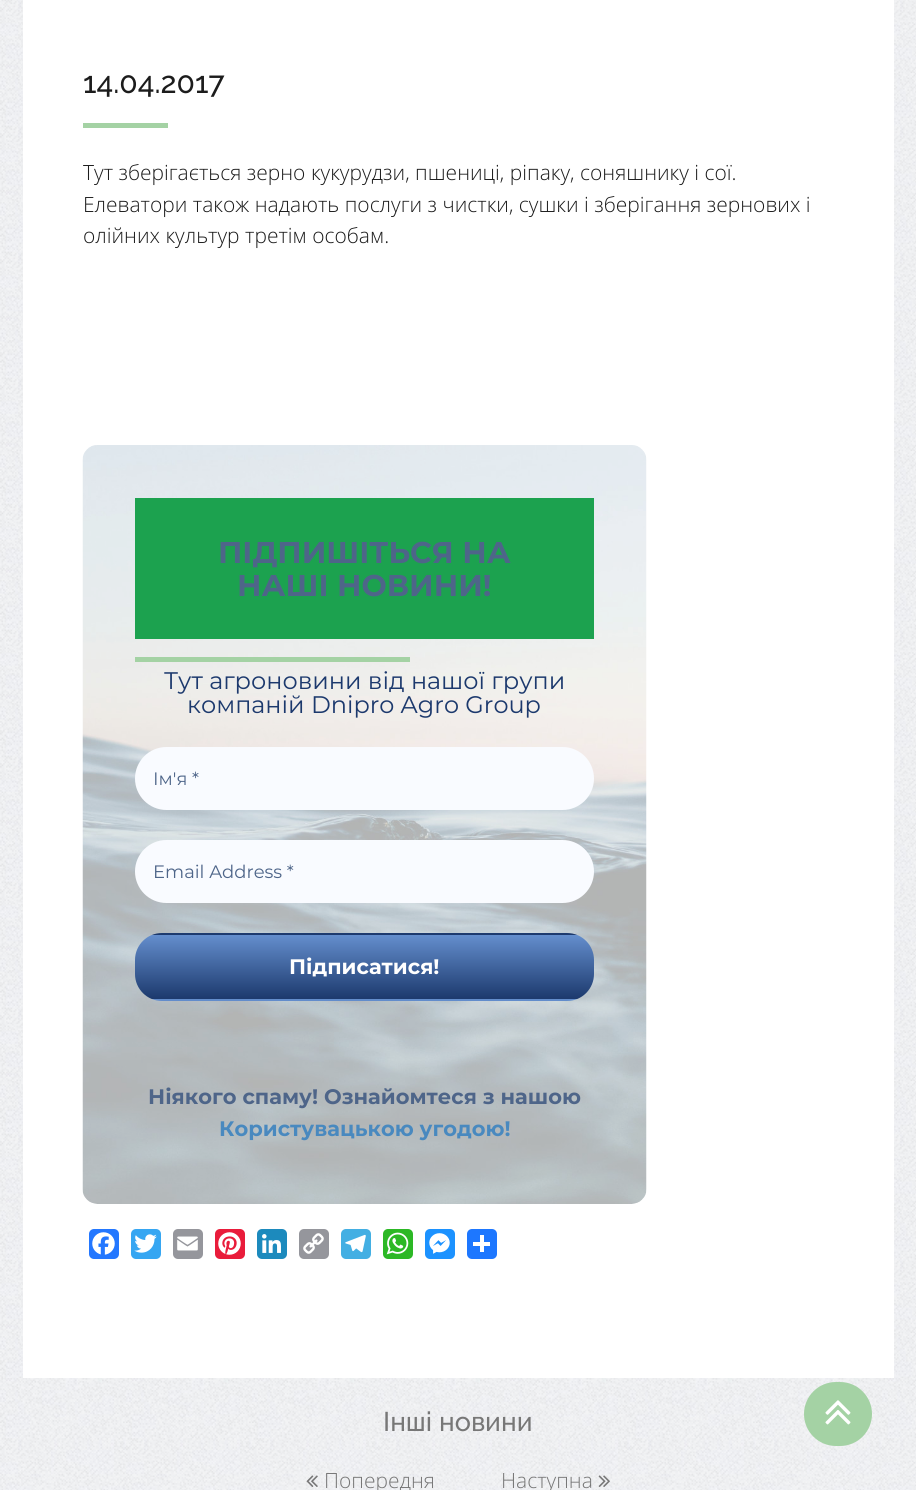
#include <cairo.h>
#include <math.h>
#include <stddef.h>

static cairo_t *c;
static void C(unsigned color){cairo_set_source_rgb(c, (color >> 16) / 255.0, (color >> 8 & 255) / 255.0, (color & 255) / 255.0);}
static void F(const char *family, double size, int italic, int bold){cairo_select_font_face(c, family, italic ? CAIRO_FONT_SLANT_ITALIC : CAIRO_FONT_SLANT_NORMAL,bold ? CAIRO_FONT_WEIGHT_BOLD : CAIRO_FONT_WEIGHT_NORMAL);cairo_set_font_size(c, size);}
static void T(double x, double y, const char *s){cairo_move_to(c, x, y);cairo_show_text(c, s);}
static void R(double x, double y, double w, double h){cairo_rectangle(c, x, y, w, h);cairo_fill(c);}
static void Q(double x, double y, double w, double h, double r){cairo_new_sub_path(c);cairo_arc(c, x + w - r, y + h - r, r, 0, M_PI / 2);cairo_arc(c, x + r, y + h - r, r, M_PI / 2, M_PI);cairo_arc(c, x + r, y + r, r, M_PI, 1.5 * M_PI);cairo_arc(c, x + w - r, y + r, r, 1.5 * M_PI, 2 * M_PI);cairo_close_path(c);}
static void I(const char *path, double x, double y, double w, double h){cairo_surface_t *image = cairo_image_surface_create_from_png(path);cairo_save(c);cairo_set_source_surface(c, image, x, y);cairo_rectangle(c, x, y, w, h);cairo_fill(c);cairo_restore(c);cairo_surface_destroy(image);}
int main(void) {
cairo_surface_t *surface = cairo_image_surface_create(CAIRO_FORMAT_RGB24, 916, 1490);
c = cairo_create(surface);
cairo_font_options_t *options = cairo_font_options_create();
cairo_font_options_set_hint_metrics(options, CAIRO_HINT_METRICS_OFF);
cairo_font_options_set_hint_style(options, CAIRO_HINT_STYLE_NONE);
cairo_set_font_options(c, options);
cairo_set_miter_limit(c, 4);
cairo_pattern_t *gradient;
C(0xffffff);
cairo_paint(c);
I("1.png",0,0,916,1378);
C(0xffffff);
R(23,0,871,1378);
F("Raleway Medium",30,0,0);
C(0x1c1c1c);
T(83,93,"14.04.2017");
C(0xa4d2a4);
R(83,123,85,5);
F("Open Sans Light",21,0,0);
C(0x1c1c1c);
T(83,180,"Тут зберігається зерно кукурудзи, пшениці, ріпаку, соняшнику і сої.");
T(83,212,"Елеватори також надають послуги з чистки, сушки і зберігання зернових і");
T(83,243,"олійних культур третім особам.");
I("2.png",82,445,565,759);
C(0x1ca24f);
R(135,498,459,141);
F("Montserrat",30,0,1);
C(0x4e6589);
T(218,563,"ПІДПИШІТЬСЯ НА");
T(237,596,"НАШІ НОВИНИ!");
C(0xa4d2a4);
R(135,657,275,5);
F("Montserrat",24,0,0);
C(0x1c396d);
T(164,689,"Тут агроновини від нашої групи");
T(187,713,"компаній Dnipro Agro Group");
C(0xf9fbff);
Q(135,747,459,63,31.5);
cairo_fill(c);
F("Montserrat",18,0,0);
C(0x4e6589);
T(153,785,"Ім'я *");
C(0xf9fbff);
Q(135,840,459,63,31.5);
cairo_fill(c);
C(0x4e6589);
T(153,878,"Email Address *");
cairo_save(c);
Q(135,933,459,68,27);
cairo_clip(c);
gradient = cairo_pattern_create_linear(365,935,365,870);
cairo_pattern_add_color_stop_rgba(gradient,0,0.11,0.224,0.427,1);
cairo_pattern_add_color_stop_rgba(gradient,1,0.392,0.557,0.804,1);
cairo_set_source(c,gradient);
cairo_pattern_destroy(gradient);
R(152,933,425,2);
gradient = cairo_pattern_create_linear(365,999,365,935);
cairo_pattern_add_color_stop_rgba(gradient,0,0.11,0.224,0.427,1);
cairo_pattern_add_color_stop_rgba(gradient,1,0.392,0.557,0.804,1);
cairo_set_source(c,gradient);
cairo_pattern_destroy(gradient);
R(135,935,459,64);
gradient = cairo_pattern_create_linear(365,1064,365,999);
cairo_pattern_add_color_stop_rgba(gradient,0,0.11,0.224,0.427,1);
cairo_pattern_add_color_stop_rgba(gradient,1,0.392,0.557,0.804,1);
cairo_set_source(c,gradient);
cairo_pattern_destroy(gradient);
R(152,999,425,2);
cairo_restore(c);
F("Montserrat",21,0,1);
C(0xffffff);
T(289,974,"Підписатися!");
C(0x4e6589);
T(148,1104,"Ніякого спаму!");
T(324,1104,"Ознайомтеся з нашою");
C(0x4989bf);
T(219,1136,"Користувацькою угодою!");
C(0x2377ff);
Q(89,1229,30,30,5);
cairo_fill(c);
I("3.png",92,1232,23,23);
C(0x36a6f2);
Q(131,1229,30,30,5);
cairo_fill(c);
I("4.png",134,1234,23,19);
C(0x95969c);
Q(173,1229,30,30,5);
cairo_fill(c);
I("5.png",177,1236,21,15);
C(0xe91c3b);
Q(215,1229,30,30,5);
cairo_fill(c);
I("6.png",218,1232,23,23);
C(0x1c8abd);
Q(257,1229,30,30,5);
cairo_fill(c);
I("7.png",262,1234,19,19);
C(0x95969c);
Q(299,1229,30,30,5);
cairo_fill(c);
I("8.png",303,1233,21,21);
C(0x43afe3);
Q(341,1229,30,30,5);
cairo_fill(c);
I("9.png",345,1234,21,19);
C(0x2cb825);
Q(383,1229,30,30,5);
cairo_fill(c);
I("10.png",386,1232,23,23);
C(0x1c92ff);
Q(425,1229,30,30,5);
cairo_fill(c);
I("11.png",429,1233,21,21);
C(0x1d77ff);
Q(467,1229,30,30,5);
cairo_fill(c);
C(0xffffff);
R(480,1235,4,17);
R(473,1242,17,4);
I("12.png",0,1378,916,112);
F("Raleway Medium",27,0,0);
C(0x777777);
T(383,1431,"Інші новини");
I("13.png",306,1475,12,12);
F("Open Sans Light",21,0,0);
T(324,1488,"Попередня");
T(501,1488,"Наступна");
I("14.png",598,1475,12,12);
C(0xa4d2a4);
Q(804,1382,68,64,32);
cairo_fill(c);
I("15.png",825,1400,26,25);
cairo_surface_write_to_png(surface, "o.png");
cairo_font_options_destroy(options);
cairo_destroy(c);
cairo_surface_destroy(surface);
return 0;
}
